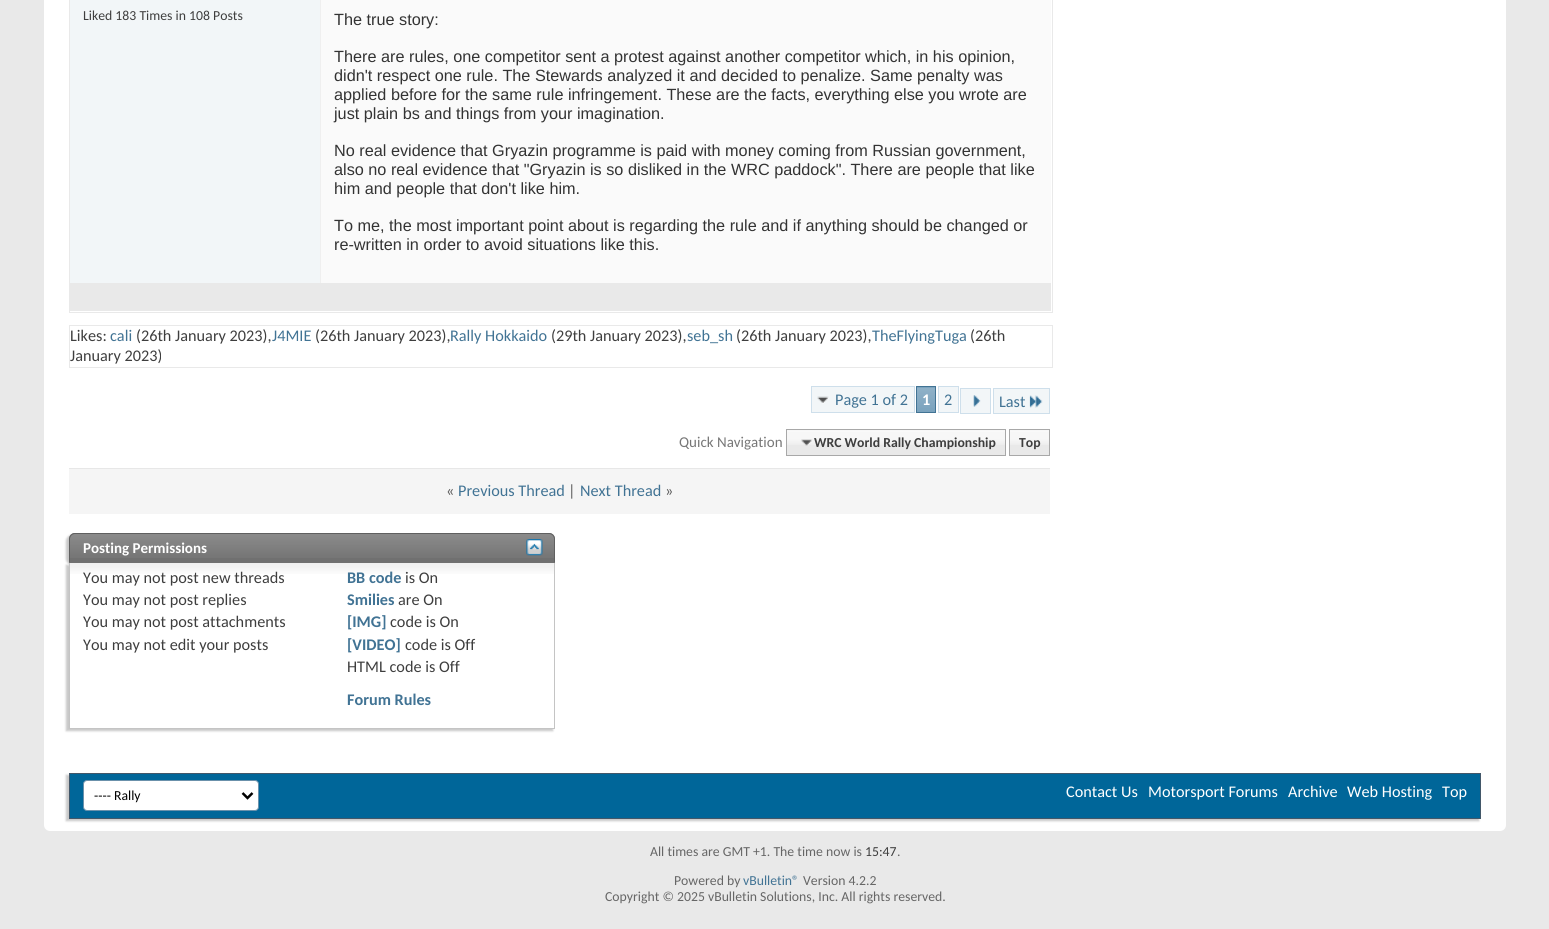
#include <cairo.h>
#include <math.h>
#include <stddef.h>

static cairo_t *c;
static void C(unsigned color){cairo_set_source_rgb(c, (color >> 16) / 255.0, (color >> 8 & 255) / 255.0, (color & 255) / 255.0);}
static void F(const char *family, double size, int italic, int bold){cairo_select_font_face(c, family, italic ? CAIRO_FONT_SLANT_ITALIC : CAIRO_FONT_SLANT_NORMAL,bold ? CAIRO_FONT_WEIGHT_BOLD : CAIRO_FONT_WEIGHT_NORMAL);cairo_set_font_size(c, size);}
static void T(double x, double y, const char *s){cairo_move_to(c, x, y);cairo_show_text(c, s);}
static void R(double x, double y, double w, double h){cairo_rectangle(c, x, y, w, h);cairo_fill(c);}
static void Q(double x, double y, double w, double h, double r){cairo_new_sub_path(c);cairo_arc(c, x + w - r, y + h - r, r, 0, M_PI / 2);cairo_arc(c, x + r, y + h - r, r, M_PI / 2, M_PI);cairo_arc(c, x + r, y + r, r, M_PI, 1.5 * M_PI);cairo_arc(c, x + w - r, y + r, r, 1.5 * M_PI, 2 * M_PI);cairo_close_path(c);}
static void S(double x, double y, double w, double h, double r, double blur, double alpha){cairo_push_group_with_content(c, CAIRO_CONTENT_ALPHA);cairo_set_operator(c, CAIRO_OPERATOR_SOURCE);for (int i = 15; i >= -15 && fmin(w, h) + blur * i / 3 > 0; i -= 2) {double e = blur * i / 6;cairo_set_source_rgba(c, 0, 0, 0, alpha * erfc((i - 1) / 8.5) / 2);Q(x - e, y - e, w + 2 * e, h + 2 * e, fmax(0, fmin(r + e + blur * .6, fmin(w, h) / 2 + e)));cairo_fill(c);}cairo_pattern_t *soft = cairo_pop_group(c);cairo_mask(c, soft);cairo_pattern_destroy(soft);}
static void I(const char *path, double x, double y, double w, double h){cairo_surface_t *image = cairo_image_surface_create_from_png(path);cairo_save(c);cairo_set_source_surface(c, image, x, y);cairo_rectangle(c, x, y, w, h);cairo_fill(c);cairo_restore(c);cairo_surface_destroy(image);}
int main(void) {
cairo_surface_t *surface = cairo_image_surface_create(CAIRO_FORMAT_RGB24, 1549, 929);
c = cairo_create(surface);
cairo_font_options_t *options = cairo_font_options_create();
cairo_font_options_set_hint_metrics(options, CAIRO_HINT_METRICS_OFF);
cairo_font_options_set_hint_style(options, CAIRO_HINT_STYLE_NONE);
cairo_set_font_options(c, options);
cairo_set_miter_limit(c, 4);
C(0xe9e9e9);
cairo_paint(c);
C(0xffffff);
Q(44,-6,1462,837,6);
cairo_fill(c);
cairo_rectangle(c,69.5,-.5,983,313);
C(0xe9e9e9);
cairo_set_line_width(c,1);
cairo_stroke(c);
C(0xf2f6f8);
R(70,0,250,283);
F("Carlito",13.75,0,0);
C(0x3e3e3e);
T(83,20,"Liked 183 Times in 108 Posts");
C(0xfafafa);
R(321,0,730,283);
C(0xefefef);
R(320,0,1,283);
F("Liberation Sans",16.25,0,0);
C(0x333333);
T(334,25,"The true story:");
T(334,62,"There are rules, one competitor sent a protest against another competitor which, in his opinion,");
T(334,81,"didn't respect one rule. The Stewards analyzed it and decided to penalize. Same penalty was");
T(334,100,"applied before for the same rule infringement. These are the facts, everything else you wrote are");
T(334,119,"just plain bs and things from your imagination.");
T(334,156,"No real evidence that Gryazin programme is paid with money coming from Russian government,");
T(334,175,"also no real evidence that \"Gryazin is so disliked in the WRC paddock\". There are people that like");
T(334,194,"him and people that don't like him.");
T(334,231,"To me, the most important point about is regarding the rule and if anything should be changed or");
T(334,250,"re-written in order to avoid situations like this.");
C(0xe9e9e9);
R(70,283,981,28);
cairo_rectangle(c,69.5,325.5,983,42);
cairo_stroke(c);
F("Carlito",16.25,0,0);
C(0x3e3e3e);
T(70,341,"Likes:");
C(0x417394);
T(110,341,"cali");
C(0x3e3e3e);
T(136,341,"(26th January 2023),");
C(0x417394);
T(272,341,"J4MIE");
C(0x3e3e3e);
T(315,341,"(26th January 2023),");
C(0x417394);
T(450,341,"Rally Hokkaido");
C(0x3e3e3e);
T(551,341,"(29th January 2023),");
C(0x417394);
T(687,341,"seb_sh");
C(0x3e3e3e);
T(736,341,"(26th January 2023),");
C(0x417394);
T(872,341,"TheFlyingTuga");
C(0x3e3e3e);
T(970,341,"(26th");
T(70,361,"January 2023)");
C(0xf2f6f8);
R(812,387,102,25);
I("1.png",817,396,12,8);
cairo_rectangle(c,811.5,386.5,103,26);
C(0xcedfeb);
cairo_stroke(c);
C(0x417394);
T(835,405,"Page 1 of 2");
C(0x759fbb);
R(917,387,18,25);
I("2.png",917,387,18,25);
cairo_rectangle(c,916.5,386.5,19,26);
C(0x417394);
cairo_stroke(c);
F("Carlito",16.25,0,1);
C(0xffffff);
T(922,405,"1");
C(0xf2f6f8);
cairo_rectangle(c,938.5,386.5,20,26);
cairo_fill_preserve(c);
C(0xcedfeb);
cairo_stroke(c);
F("Carlito",16.25,0,0);
C(0x417394);
T(944,405,"2");
C(0xf2f6f8);
cairo_rectangle(c,960.5,388.5,30,25);
cairo_fill_preserve(c);
C(0xcedfeb);
cairo_stroke(c);
I("3.png",973,395,8,12);
C(0xf2f6f8);
R(994,389,55,24);
C(0x417394);
T(999,407,"Last");
C(0xcedfeb);
R(993,388,57,1);
R(993,413,32,1);
R(993,388,1,26);
R(1049,388,1,26);
R(1025,413,25,1);
I("4.png",1029,395,14,13);
F("Carlito",15,0,0);
C(0x777777);
T(679,447,"Quick Navigation");
C(0xe9e9e9);
R(787,430,218,25);
I("5.png",787,430,218,15);
R(1010,430,39,25);
I("6.png",1010,430,39,15);
cairo_rectangle(c,786.5,429.5,219,26);
C(0xa8a8a8);
cairo_stroke(c);
I("7.png",801,439,12,7);
F("Carlito",13.75,0,1);
C(0x3e3e3e);
T(814,447,"WRC World Rally Championship");
cairo_rectangle(c,1009.5,429.5,40,26);
C(0xa8a8a8);
cairo_stroke(c);
C(0x3e3e3e);
T(1019,447,"Top");
C(0xf5f5f5);
R(69,469,981,45);
C(0xe7e7e7);
R(69,468,981,1);
F("Carlito",16.25,0,0);
C(0x5d5d5d);
T(446,496,"«");
C(0x417394);
T(458,496,"Previous Thread");
C(0x5d5d5d);
T(568,496,"|");
C(0x417394);
T(580,496,"Next Thread");
C(0x5d5d5d);
T(665,496,"»");
C(0xc8c8c8);
S(66,535,487,30,6,1,1);
C(0x707070);
cairo_new_path(c);
cairo_move_to(c,75,533);
cairo_line_to(c,549,533);
cairo_curve_to(c,552.5,533,555,535.5,555,539);
cairo_line_to(c,555,563);
cairo_line_to(c,69,563);
cairo_line_to(c,69,539);
cairo_curve_to(c,69,535.5,71.5,533,75,533);
cairo_close_path(c);
cairo_fill(c);
I("8.png",69,534,486,24);
cairo_new_path(c);
cairo_move_to(c,75,533.5);
cairo_line_to(c,549,533.5);
cairo_curve_to(c,552,533.5,554.5,536,554.5,539);
cairo_line_to(c,554.5,562.5);
cairo_line_to(c,69.5,562.5);
cairo_line_to(c,69.5,539);
cairo_curve_to(c,69.5,536,72,533.5,75,533.5);
cairo_close_path(c);
C(0x606060);
cairo_stroke(c);
F("Carlito",15,0,1);
C(0xffffff);
T(83,553,"Posting Permissions");
I("9.png",526,539,17,17);
C(0xc8c8c8);
S(66,565,487,166,0,1,1);
C(0xffffff);
R(70,563,484,165);
I("10.png",69,562,486,12);
C(0xc4c4c4);
R(554,563,1,166);
R(69,728,486,1);
R(69,563,1,166);
F("Carlito",16.25,0,0);
C(0x3e3e3e);
T(83,583,"You may not post new threads");
T(83,605,"You may not post replies");
T(83,627,"You may not post attachments");
T(83,650,"You may not edit your posts");
F("Carlito",16.25,0,1);
C(0x417394);
T(347,583,"BB code");
F("Carlito",16.25,0,0);
C(0x3e3e3e);
T(405,583,"is On");
F("Carlito",16.25,0,1);
C(0x417394);
T(347,605,"Smilies");
F("Carlito",16.25,0,0);
C(0x3e3e3e);
T(398,605,"are On");
F("Carlito",16.25,0,1);
C(0x417394);
T(347,627,"[IMG]");
F("Carlito",16.25,0,0);
C(0x3e3e3e);
T(390,627,"code is On");
F("Carlito",16.25,0,1);
C(0x417394);
T(347,650,"[VIDEO]");
F("Carlito",16.25,0,0);
C(0x3e3e3e);
T(405,650,"code is Off");
T(347,672,"HTML code is Off");
F("Carlito",16.25,0,1);
C(0x417394);
T(347,705,"Forum Rules");
C(0xc8c8c8);
S(66,775,1413,46,0,1,1);
C(0x006699);
cairo_rectangle(c,69.5,773.5,1411,45);
cairo_fill_preserve(c);
C(0x425769);
cairo_stroke(c);
C(0xffffff);
Q(83.5,780.5,175,30,3.5);
cairo_fill_preserve(c);
C(0x6b91ab);
cairo_stroke(c);
cairo_new_path(c);
cairo_move_to(c,242.5,793);
cairo_line_to(c,247.5,798);
cairo_line_to(c,252.5,793);
C(0x000000);
cairo_set_line_width(c,2.5);
cairo_stroke(c);
F("Carlito",13.75,0,0);
T(94,800,"---- Rally");
F("Carlito",16.25,0,0);
C(0xffffff);
T(1066,797,"Contact Us");
T(1148,797,"Motorsport Forums");
T(1288,797,"Archive");
T(1347,797,"Web Hosting");
T(1442,797,"Top");
F("Carlito",13.75,0,0);
C(0x666666);
T(650,856,"All times are GMT +1. The time now is");
C(0x3e3e3e);
T(865,856,"15:47");
C(0x666666);
T(897,856,".");
T(674,885,"Powered by");
C(0x417394);
T(743,885,"vBulletin®");
C(0x666666);
T(803,885,"Version 4.2.2");
T(605,901,"Copyright © 2025 vBulletin Solutions, Inc. All rights reserved.");
cairo_surface_write_to_png(surface, "o.png");
cairo_font_options_destroy(options);
cairo_destroy(c);
cairo_surface_destroy(surface);
return 0;
}
